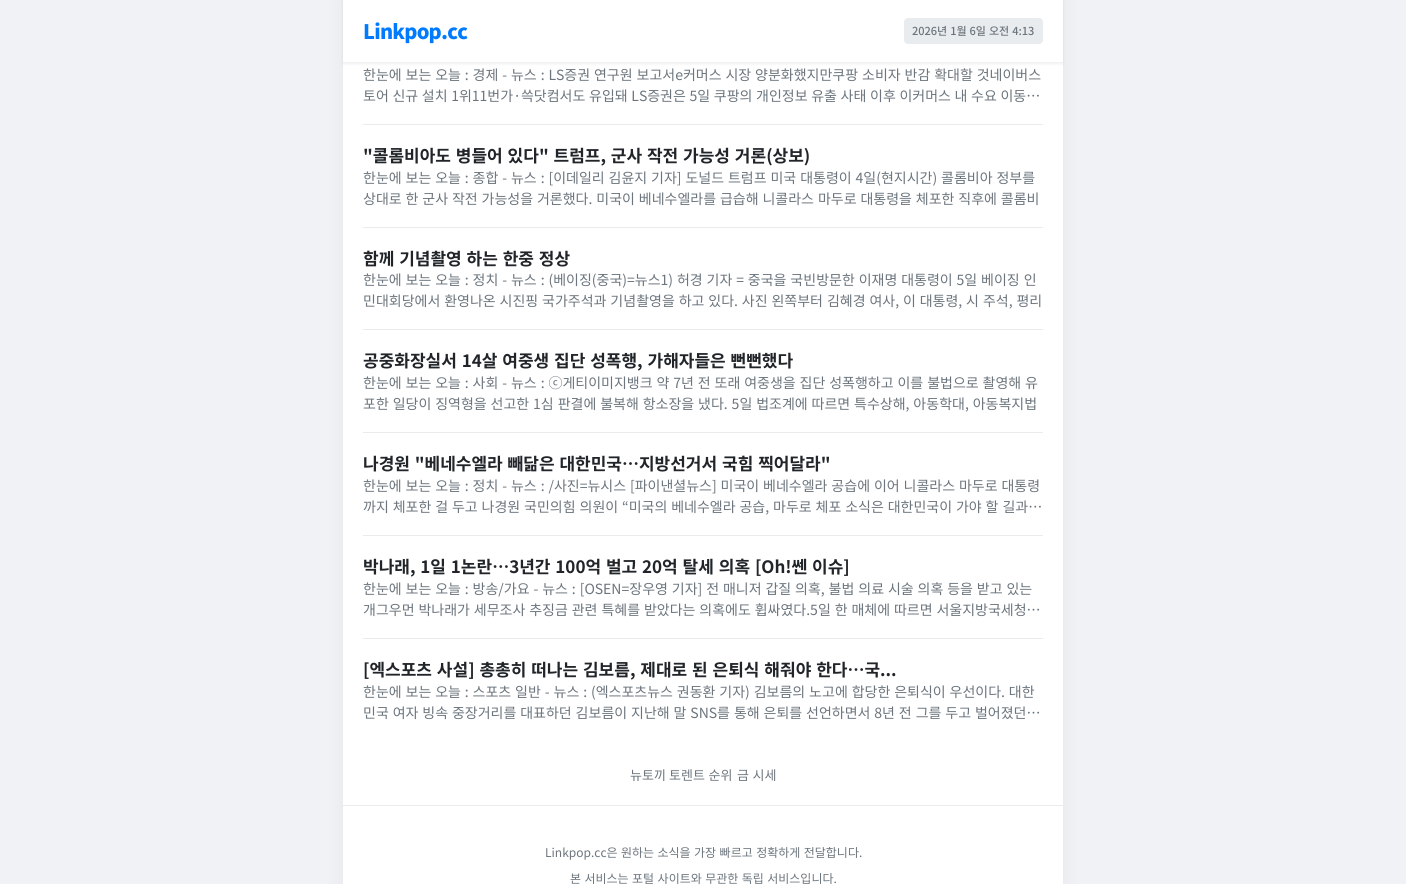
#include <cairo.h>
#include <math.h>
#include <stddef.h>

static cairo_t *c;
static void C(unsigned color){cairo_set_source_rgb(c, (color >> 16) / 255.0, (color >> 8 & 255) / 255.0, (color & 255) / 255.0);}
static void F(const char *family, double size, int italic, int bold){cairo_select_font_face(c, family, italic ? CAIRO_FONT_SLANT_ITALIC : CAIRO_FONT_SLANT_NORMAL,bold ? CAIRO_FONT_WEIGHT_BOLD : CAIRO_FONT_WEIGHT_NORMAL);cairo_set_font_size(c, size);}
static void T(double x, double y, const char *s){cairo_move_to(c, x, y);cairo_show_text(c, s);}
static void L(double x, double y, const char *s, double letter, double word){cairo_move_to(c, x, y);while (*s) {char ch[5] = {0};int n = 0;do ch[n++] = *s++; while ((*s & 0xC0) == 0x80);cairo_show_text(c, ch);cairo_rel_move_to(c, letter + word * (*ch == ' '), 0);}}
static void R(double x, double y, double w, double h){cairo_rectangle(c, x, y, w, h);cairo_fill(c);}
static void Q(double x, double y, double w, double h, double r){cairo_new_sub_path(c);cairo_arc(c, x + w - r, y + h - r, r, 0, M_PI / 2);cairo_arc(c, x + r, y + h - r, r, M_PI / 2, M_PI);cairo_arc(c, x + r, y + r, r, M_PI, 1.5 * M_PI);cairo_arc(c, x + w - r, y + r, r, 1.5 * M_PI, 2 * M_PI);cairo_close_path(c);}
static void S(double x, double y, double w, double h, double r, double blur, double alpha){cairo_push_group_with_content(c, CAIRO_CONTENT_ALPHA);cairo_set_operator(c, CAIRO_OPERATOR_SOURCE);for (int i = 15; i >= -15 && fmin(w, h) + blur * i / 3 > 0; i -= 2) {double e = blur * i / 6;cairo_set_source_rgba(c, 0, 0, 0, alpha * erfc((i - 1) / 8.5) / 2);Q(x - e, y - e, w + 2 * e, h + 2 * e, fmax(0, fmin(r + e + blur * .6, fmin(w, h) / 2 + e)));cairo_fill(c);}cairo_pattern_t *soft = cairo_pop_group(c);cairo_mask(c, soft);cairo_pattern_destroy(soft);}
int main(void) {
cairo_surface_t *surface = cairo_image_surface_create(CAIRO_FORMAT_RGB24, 1406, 884);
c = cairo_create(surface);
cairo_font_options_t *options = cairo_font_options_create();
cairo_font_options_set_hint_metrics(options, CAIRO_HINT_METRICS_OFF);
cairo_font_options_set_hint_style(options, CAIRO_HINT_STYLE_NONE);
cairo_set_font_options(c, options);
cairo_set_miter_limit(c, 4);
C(0xf0f2f5);
cairo_paint(c);
C(0x000000);
S(343,-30,720,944,0,10,.05);
C(0xffffff);
R(343,63,720,821);
C(0x000000);
S(343,1,720,63,0,1.5,.06);
C(0xffffff);
R(343,0,720,62);
C(0xf2f2f2);
R(343,62,720,1);
F("Noto Sans KR Black",20,0,0);
C(0x007bff);
L(363,39,"Linkpop.cc",-.75,0);
C(0xe9ecef);
Q(904,18,139,26,4);
cairo_fill(c);
F("Noto Sans KR Medium",11,0,0);
C(0x6c757d);
L(912,35,"2026년 1월 6일 오전 4:13",0,.5);
C(0xebebeb);
R(363,124,680,1);
F("Noto Sans KR",14,0,0);
C(0x6c757d);
L(363,80,"한눈에 보는 오늘 : 경제 - 뉴스 : LS증권 연구원 보고서e커머스 시장 양분화했지만쿠팡 소비자 반감 확대할 것네이버스",0,.75);
L(363,101,"토어 신규 설치 1위11번가·쓱닷컴서도 유입돼 LS증권은 5일 쿠팡의 개인정보 유출 사태 이후 이커머스 내 수요 이동…",0,.5);
C(0xebebeb);
R(363,227,680,1);
F("Noto Sans KR",17,0,1);
C(0x212529);
L(363,162,"\"콜롬비아도 병들어 있다\" 트럼프, 군사 작전 가능성 거론(상보)",0,1);
F("Noto Sans KR",14,0,0);
C(0x6c757d);
L(363,183,"한눈에 보는 오늘 : 종합 - 뉴스 : [이데일리 김윤지 기자] 도널드 트럼프 미국 대통령이 4일(현지시간) 콜롬비아 정부를",0,.75);
L(363,204,"상대로 한 군사 작전 가능성을 거론했다. 미국이 베네수엘라를 급습해 니콜라스 마두로 대통령을 체포한 직후에 콜롬비",0,.75);
C(0xebebeb);
R(363,329,680,1);
F("Noto Sans KR",17,0,1);
C(0x212529);
L(363,265,"함께 기념촬영 하는 한중 정상",0,1);
F("Noto Sans KR",14,0,0);
C(0x6c757d);
L(363,285,"한눈에 보는 오늘 : 정치 - 뉴스 : (베이징(중국)=뉴스1) 허경 기자 = 중국을 국빈방문한 이재명 대통령이 5일 베이징 인",0,.75);
L(363,306,"민대회당에서 환영나온 시진핑 국가주석과 기념촬영을 하고 있다. 사진 왼쪽부터 김혜경 여사, 이 대통령, 시 주석, 평리",0,.75);
C(0xebebeb);
R(363,432,680,1);
F("Noto Sans KR",17,0,1);
C(0x212529);
L(363,367,"공중화장실서 14살 여중생 집단 성폭행, 가해자들은 뻔뻔했다",0,1);
F("Noto Sans KR",14,0,0);
C(0x6c757d);
L(363,388,"한눈에 보는 오늘 : 사회 - 뉴스 : ⓒ게티이미지뱅크 약 7년 전 또래 여중생을 집단 성폭행하고 이를 불법으로 촬영해 유",0,.75);
L(363,409,"포한 일당이 징역형을 선고한 1심 판결에 불복해 항소장을 냈다. 5일 법조계에 따르면 특수상해, 아동학대, 아동복지법",0,.75);
C(0xebebeb);
R(363,535,680,1);
F("Noto Sans KR",17,0,1);
C(0x212529);
L(363,470,"나경원 \"베네수엘라 빼닮은 대한민국…지방선거서 국힘 찍어달라\"",0,1);
F("Noto Sans KR",14,0,0);
C(0x6c757d);
L(363,491,"한눈에 보는 오늘 : 정치 - 뉴스 : /사진=뉴시스 [파이낸셜뉴스] 미국이 베네수엘라 공습에 이어 니콜라스 마두로 대통령",0,.75);
L(363,512,"까지 체포한 걸 두고 나경원 국민의힘 의원이 “미국의 베네수엘라 공습, 마두로 체포 소식은 대한민국이 가야 할 길과…",0,.75);
C(0xebebeb);
R(363,638,680,1);
F("Noto Sans KR",17,0,1);
C(0x212529);
L(363,573,"박나래, 1일 1논란…3년간 100억 벌고 20억 탈세 의혹 [Oh!쎈 이슈]",0,1);
F("Noto Sans KR",14,0,0);
C(0x6c757d);
L(363,594,"한눈에 보는 오늘 : 방송/가요 - 뉴스 : [OSEN=장우영 기자] 전 매니저 갑질 의혹, 불법 의료 시술 의혹 등을 받고 있는",0,.75);
L(363,615,"개그우먼 박나래가 세무조사 추징금 관련 특혜를 받았다는 의혹에도 휩싸였다.5일 한 매체에 따르면 서울지방국세청…",0,.75);
F("Noto Sans KR",17,0,1);
C(0x212529);
L(363,676,"[엑스포츠 사설] 총총히 떠나는 김보름, 제대로 된 은퇴식 해줘야 한다…국...",0,1);
F("Noto Sans KR",14,0,0);
C(0x6c757d);
L(363,697,"한눈에 보는 오늘 : 스포츠 일반 - 뉴스 : (엑스포츠뉴스 권동환 기자) 김보름의 노고에 합당한 은퇴식이 우선이다. 대한",0,.75);
L(363,718,"민국 여자 빙속 중장거리를 대표하던 김보름이 지난해 말 SNS를 통해 은퇴를 선언하면서 8년 전 그를 두고 벌어졌던…",0,.75);
F("Noto Sans KR",13,0,0);
T(630,780,"뉴토끼");
L(669,780,"토렌트 순위",0,.75);
L(737,780,"금 시세",0,.75);
C(0xebebeb);
R(343,805,720,1);
F("Noto Sans KR",12,0,0);
C(0x6c757d);
L(545,857,"Linkpop.cc은 원하는 소식을 가장 빠르고 정확하게 전달합니다.",0,.75);
L(570,883,"본 서비스는 포털 사이트와 무관한 독립 서비스입니다.",0,.75);
cairo_surface_write_to_png(surface, "o.png");
cairo_font_options_destroy(options);
cairo_destroy(c);
cairo_surface_destroy(surface);
return 0;
}
